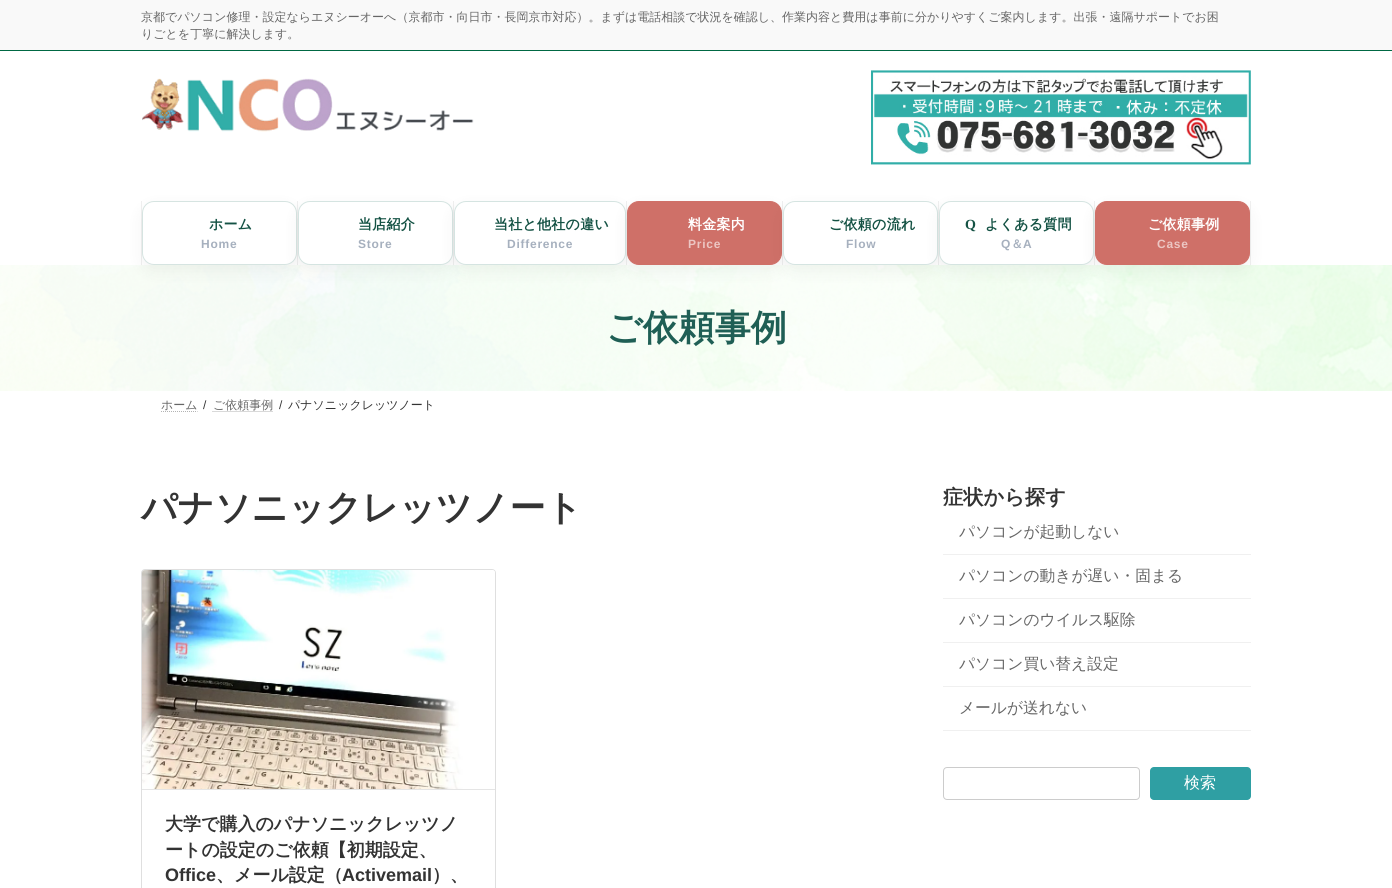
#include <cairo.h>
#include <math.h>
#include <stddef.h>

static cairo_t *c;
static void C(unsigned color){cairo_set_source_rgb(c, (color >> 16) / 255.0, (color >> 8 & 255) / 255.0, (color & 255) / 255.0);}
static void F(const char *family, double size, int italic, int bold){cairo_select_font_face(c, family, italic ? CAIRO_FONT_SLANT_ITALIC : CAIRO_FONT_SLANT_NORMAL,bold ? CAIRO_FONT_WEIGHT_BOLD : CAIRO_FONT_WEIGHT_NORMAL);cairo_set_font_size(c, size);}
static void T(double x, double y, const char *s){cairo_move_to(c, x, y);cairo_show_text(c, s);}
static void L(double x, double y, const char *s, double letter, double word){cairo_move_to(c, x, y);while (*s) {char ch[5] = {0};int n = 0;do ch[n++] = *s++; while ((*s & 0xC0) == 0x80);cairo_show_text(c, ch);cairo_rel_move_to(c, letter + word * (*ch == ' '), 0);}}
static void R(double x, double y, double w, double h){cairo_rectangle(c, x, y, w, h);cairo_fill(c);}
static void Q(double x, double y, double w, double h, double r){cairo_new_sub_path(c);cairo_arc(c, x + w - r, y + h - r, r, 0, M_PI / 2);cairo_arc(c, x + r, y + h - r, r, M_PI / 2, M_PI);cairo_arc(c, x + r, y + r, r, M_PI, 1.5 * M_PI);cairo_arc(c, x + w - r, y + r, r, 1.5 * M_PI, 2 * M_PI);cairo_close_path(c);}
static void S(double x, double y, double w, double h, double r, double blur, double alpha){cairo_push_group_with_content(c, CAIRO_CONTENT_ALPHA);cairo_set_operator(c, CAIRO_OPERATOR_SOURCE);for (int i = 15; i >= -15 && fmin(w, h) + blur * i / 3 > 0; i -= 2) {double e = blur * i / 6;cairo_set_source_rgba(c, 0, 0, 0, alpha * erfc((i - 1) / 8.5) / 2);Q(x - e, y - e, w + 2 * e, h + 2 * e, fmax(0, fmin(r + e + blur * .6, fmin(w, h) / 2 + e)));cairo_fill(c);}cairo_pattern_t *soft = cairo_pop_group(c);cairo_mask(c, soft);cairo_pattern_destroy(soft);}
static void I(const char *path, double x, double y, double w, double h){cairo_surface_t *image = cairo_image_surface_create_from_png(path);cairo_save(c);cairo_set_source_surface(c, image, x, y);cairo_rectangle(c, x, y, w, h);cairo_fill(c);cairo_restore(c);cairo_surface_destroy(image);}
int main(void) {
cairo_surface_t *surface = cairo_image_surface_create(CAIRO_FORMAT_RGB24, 1392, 888);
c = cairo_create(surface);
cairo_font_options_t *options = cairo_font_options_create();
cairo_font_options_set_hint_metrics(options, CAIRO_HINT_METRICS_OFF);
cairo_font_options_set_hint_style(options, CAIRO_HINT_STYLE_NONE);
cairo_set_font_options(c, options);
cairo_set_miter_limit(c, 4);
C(0xffffff);
cairo_paint(c);
C(0xf9f9f9);
R(0,0,1392,50);
C(0x006843);
R(0,50,1392,1);
F("WenQuanYi Zen Hei Medium",12,0,0);
C(0x666666);
T(141,21,"京都でパソコン修理・設定ならエヌシーオーへ（京都市・向日市・長岡京市対応）。まずは電話相談で状況を確認し、作業内容と費用は事前に分かりやすくご案内します。出張・遠隔サポートでお困");
T(141,38,"りごとを丁寧に解決します。");
I("1.png",142,78,332,54);
I("2.png",871,70,380,95);
C(0xf0f0f0);
R(297,201,1,64);
R(141,201,1,64);
I("3.png",0,265,1392,126);
C(0x000000);
S(142,207,155,64,12,8,.05);
C(0xffffff);
Q(142.5,201.5,154,63,11.5);
cairo_fill_preserve(c);
C(0xd6e4e1);
cairo_set_line_width(c,1);
cairo_stroke(c);
F("WenQuanYi Zen Hei",14,0,1);
C(0x145244);
L(209,229,"ホーム",.25,0);
F("Liberation Sans",12,0,1);
C(0xa6b0be);
L(201,248,"Home",.75,0);
C(0xf0f0f0);
R(453,201,1,64);
C(0x000000);
S(298,207,155,64,12,8,.05);
C(0xffffff);
Q(298,201,155,64,12);
cairo_fill(c);
Q(298.5,201.5,154,63,11.5);
cairo_set_source_rgba(c,0.106,0.42,0.353,0.18);
cairo_stroke(c);
F("WenQuanYi Zen Hei",14,0,1);
C(0x145244);
L(358,229,"当店紹介",.25,0);
F("Liberation Sans",12,0,1);
C(0xa6b0be);
L(358,248,"Store",.75,0);
C(0xf0f0f0);
R(626,201,1,64);
C(0x000000);
S(454,207,172,64,12,8,.05);
C(0xffffff);
Q(454,201,172,64,12);
cairo_fill(c);
Q(454.5,201.5,171,63,11.5);
cairo_set_source_rgba(c,0.106,0.42,0.353,0.18);
cairo_stroke(c);
F("WenQuanYi Zen Hei",14,0,1);
C(0x145244);
L(494,229,"当社と他社の違い",.25,0);
F("Liberation Sans",12,0,1);
C(0xa6b0be);
L(507,248,"Difference",.75,0);
C(0xf0f0f0);
R(782,201,1,64);
C(0x000000);
S(627,207,155,64,12,8,.05);
C(0xcf7068);
Q(627.5,201.5,154,63,11.5);
cairo_fill_preserve(c);
cairo_stroke(c);
F("WenQuanYi Zen Hei",14,0,1);
C(0xffffff);
L(688,229,"料金案内",.25,0);
F("Liberation Sans",12,0,1);
C(0xecc6c3);
L(688,248,"Price",.75,0);
C(0xf0f0f0);
R(938,201,1,64);
C(0x000000);
S(783,207,155,64,12,8,.05);
C(0xffffff);
Q(783,201,155,64,12);
cairo_fill(c);
Q(783.5,201.5,154,63,11.5);
cairo_set_source_rgba(c,0.106,0.42,0.353,0.18);
cairo_stroke(c);
F("WenQuanYi Zen Hei",14,0,1);
C(0x145244);
L(829,229,"ご依頼の流れ",.25,0);
F("Liberation Sans",12,0,1);
C(0xa6b0be);
L(846,248,"Flow",.75,0);
C(0xf0f0f0);
R(1094,201,1,64);
C(0x000000);
S(939,207,155,64,12,8,.05);
C(0xffffff);
Q(939,201,155,64,12);
cairo_fill(c);
Q(939.5,201.5,154,63,11.5);
cairo_set_source_rgba(c,0.106,0.42,0.353,0.18);
cairo_stroke(c);
F("Liberation Serif",14,0,1);
C(0x145244);
L(965,229,"Q",.25,0);
F("WenQuanYi Zen Hei",14,0,1);
L(985,229,"よくある質問",.25,0);
F("Liberation Sans",12,0,1);
C(0xa6b0be);
L(1001,248,"Q",.75,0);
F("WenQuanYi Zen Hei",12,0,1);
L(1011,248,"＆",.75,0);
F("Liberation Sans",12,0,1);
L(1023,248,"A",.75,0);
C(0xf0f0f0);
R(1250,201,1,64);
C(0x000000);
S(1095,207,155,64,12,8,.05);
C(0xcf7068);
Q(1095.5,201.5,154,63,11.5);
cairo_fill_preserve(c);
cairo_stroke(c);
F("WenQuanYi Zen Hei",14,0,1);
C(0xffffff);
L(1148,229,"ご依頼事例",.25,0);
F("Liberation Sans",12,0,1);
C(0xecc6c3);
L(1157,248,"Case",.75,0);
F("WenQuanYi Zen Hei",36,0,1);
C(0x1f5f55);
T(606,340,"ご依頼事例");
F("WenQuanYi Zen Hei Medium",12,0,0);
C(0x666666);
T(161,409,"ホーム");
cairo_new_path(c);
cairo_move_to(c,161,411.5);
cairo_line_to(c,197.5,411.5);
C(0xb3b3b3);
cairo_set_dash(c,(double[]){1,1},2,0);
cairo_stroke(c);
F("Liberation Sans",12,0,0);
C(0x333333);
T(203,409,"/");
F("WenQuanYi Zen Hei Medium",12,0,0);
C(0x666666);
T(213,409,"ご依頼事例");
cairo_new_path(c);
cairo_move_to(c,212.5,411.5);
cairo_line_to(c,273,411.5);
C(0xb3b3b3);
cairo_stroke(c);
F("Liberation Sans",12,0,0);
C(0x333333);
T(279,409,"/");
F("WenQuanYi Zen Hei Medium",12,0,0);
T(288,409,"パナソニックレッツノート");
F("WenQuanYi Zen Hei",36,0,1);
T(141,520,"パナソニックレッツノート");
Q(141.5,569.5,354,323,3.5);
C(0xdfdfdf);
cairo_set_dash(c,NULL,0,0);
cairo_stroke(c);
I("4.png",142,570,353,219);
C(0xe5e5e5);
R(142,789,353,1);
F("WenQuanYi Zen Hei",18,0,1);
C(0x333333);
T(165,830,"大学で購入のパナソニックレッツノ");
T(165,856,"ートの設定のご依頼【初期設定、");
F("Liberation Sans",18,0,1);
T(165,881,"Office");
F("WenQuanYi Zen Hei",18,0,1);
T(216,881,"、メール設定（");
F("Liberation Sans",18,0,1);
T(342,881,"Activemail");
F("WenQuanYi Zen Hei",18,0,1);
T(432,881,"）、");
F("WenQuanYi Zen Hei",20.25,0,1);
T(943,504,"症状から探す");
C(0xf0f0f0);
R(943,554,308,1);
F("WenQuanYi Zen Hei Medium",15.75,0,0);
C(0x666666);
T(959,537,"パソコンが起動しない");
C(0xf0f0f0);
R(943,598,308,1);
C(0x666666);
T(959,581,"パソコンの動きが遅い・固まる");
C(0xf0f0f0);
R(943,642,308,1);
C(0x666666);
T(959,625,"パソコンのウイルス駆除");
C(0xf0f0f0);
R(943,686,308,1);
C(0x666666);
T(959,669,"パソコン買い替え設定");
C(0xf0f0f0);
R(943,730,308,1);
C(0x666666);
T(959,713,"メールが送れない");
Q(943.5,767.5,196,32,3.5);
C(0xcccccc);
cairo_stroke(c);
C(0x2f9fa3);
Q(1150,767,101,33,4);
cairo_fill(c);
F("WenQuanYi Zen Hei Medium",16,0,0);
C(0xffffff);
T(1184,788,"検索");
cairo_surface_write_to_png(surface, "o.png");
cairo_font_options_destroy(options);
cairo_destroy(c);
cairo_surface_destroy(surface);
return 0;
}
